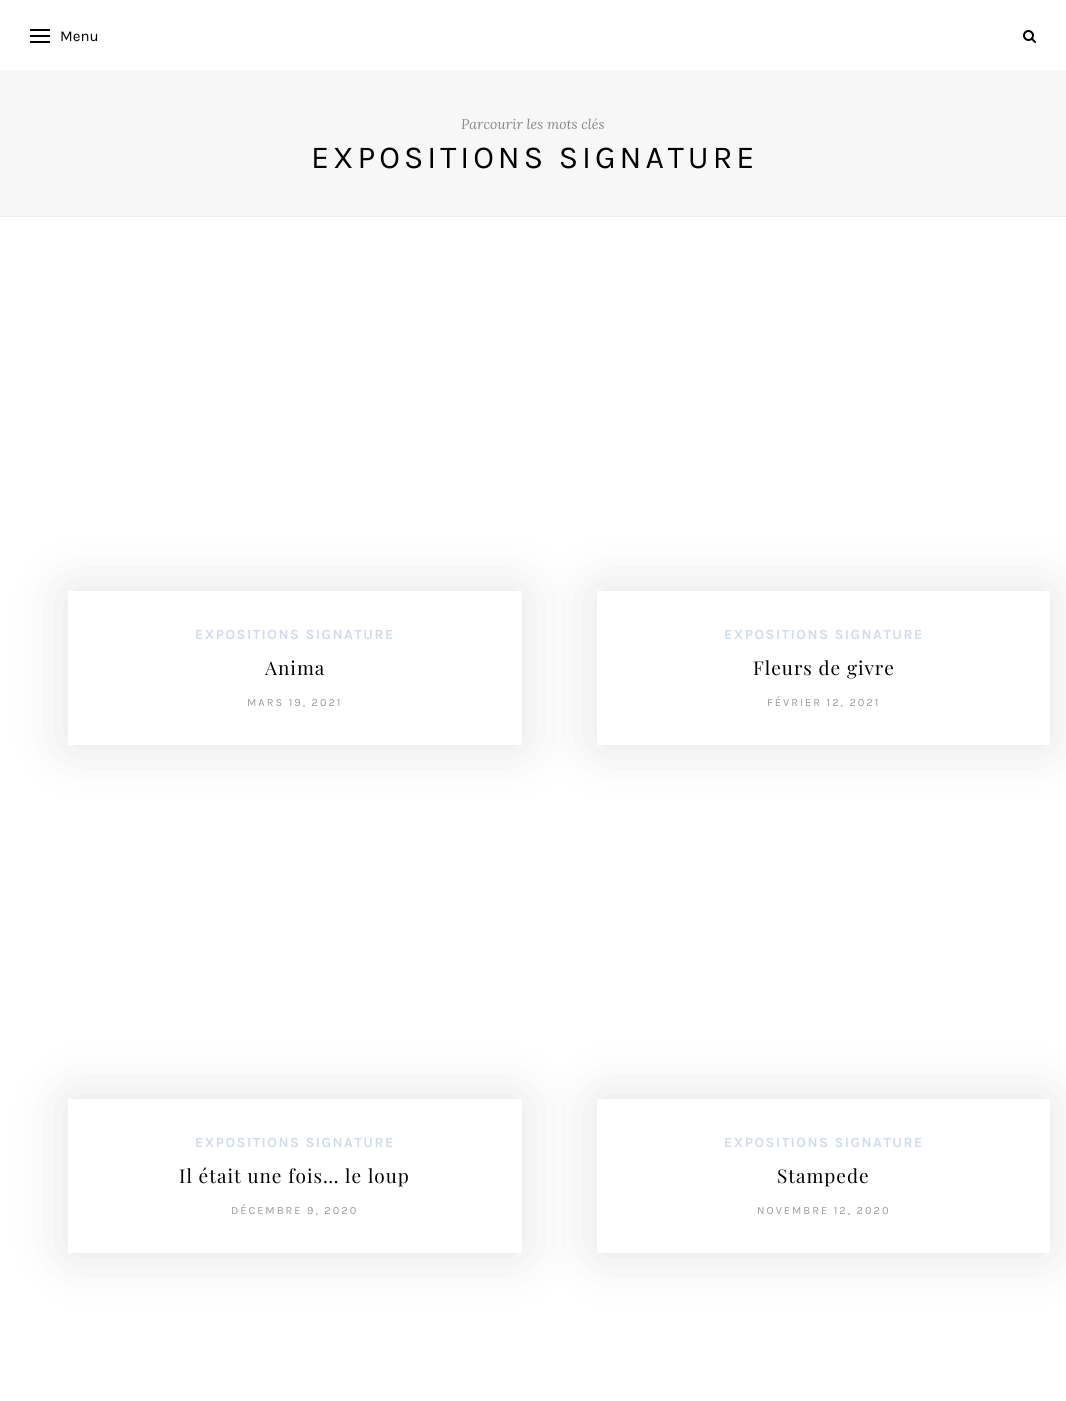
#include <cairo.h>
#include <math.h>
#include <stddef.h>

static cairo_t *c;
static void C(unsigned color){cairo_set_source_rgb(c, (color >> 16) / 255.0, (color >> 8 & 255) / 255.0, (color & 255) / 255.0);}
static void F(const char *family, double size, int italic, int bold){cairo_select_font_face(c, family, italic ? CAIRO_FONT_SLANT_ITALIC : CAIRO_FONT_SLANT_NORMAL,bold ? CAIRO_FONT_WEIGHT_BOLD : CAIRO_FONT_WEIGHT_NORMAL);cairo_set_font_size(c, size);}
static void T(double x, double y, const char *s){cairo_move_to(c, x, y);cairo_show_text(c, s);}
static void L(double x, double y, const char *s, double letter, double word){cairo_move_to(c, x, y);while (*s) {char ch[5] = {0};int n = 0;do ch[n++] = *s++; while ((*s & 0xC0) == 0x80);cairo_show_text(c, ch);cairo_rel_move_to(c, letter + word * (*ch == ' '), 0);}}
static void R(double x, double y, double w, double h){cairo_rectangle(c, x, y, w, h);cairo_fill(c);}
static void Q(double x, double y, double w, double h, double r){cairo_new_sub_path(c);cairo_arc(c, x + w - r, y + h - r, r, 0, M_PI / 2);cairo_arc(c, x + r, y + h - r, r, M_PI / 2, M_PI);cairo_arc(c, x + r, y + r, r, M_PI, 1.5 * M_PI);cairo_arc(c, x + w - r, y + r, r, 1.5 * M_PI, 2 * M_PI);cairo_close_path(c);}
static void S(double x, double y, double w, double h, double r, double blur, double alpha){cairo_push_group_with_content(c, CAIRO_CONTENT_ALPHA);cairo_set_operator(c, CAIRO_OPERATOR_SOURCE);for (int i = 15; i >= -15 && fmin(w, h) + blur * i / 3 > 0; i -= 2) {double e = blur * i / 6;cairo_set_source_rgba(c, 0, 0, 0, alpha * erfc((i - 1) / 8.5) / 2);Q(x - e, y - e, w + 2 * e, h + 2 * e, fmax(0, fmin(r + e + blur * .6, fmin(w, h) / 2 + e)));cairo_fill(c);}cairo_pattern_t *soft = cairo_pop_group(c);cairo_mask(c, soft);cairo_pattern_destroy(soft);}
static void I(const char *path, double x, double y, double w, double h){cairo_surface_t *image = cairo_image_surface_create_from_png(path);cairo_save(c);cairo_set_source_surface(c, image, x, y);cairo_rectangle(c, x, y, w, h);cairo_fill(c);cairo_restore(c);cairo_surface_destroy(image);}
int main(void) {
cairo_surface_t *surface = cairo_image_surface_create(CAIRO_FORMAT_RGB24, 1066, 1401);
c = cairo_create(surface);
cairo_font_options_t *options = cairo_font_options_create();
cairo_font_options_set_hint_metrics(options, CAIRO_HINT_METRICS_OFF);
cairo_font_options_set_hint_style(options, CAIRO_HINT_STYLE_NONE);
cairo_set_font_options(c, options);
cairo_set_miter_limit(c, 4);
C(0xffffff);
cairo_paint(c);
C(0x000000);
R(30,29,20,2);
R(30,41,20,2);
R(30,35,20,2);
F("Karla",15,0,0);
T(60,41,"Menu");
I("1.png",1023,30,13,13);
C(0xf7f7f7);
R(0,70,1066,146);
C(0xeaeaea);
R(0,216,1066,1);
F("Lora",14,1,0);
C(0x888888);
T(461,129,"Parcourir les mots clés");
F("Karla",32,0,0);
C(0x000000);
L(311,168,"EXPOSITIONS SIGNATURE",4,0);
cairo_save(c);
cairo_set_fill_rule(c,CAIRO_FILL_RULE_EVEN_ODD);
cairo_new_path(c);
cairo_move_to(c,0,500);
cairo_line_to(c,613,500);
cairo_line_to(c,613,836);
cairo_line_to(c,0,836);
cairo_close_path(c);
cairo_move_to(c,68,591);
cairo_line_to(c,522,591);
cairo_line_to(c,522,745);
cairo_line_to(c,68,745);
cairo_close_path(c);
cairo_clip(c);
C(0x000000);
S(68,591,454,154,0,30,.11);
cairo_restore(c);
F("Karla",14,0,1);
C(0xd2dbeb);
L(195,639,"EXPOSITIONS SIGNATURE",1.5,0);
F("Playfair Display",19,0,0);
C(0x000000);
L(265,675,"Anima",1,0);
F("Karla",11,0,0);
C(0x999999);
L(247,706,"MARS 19, 2021",2,0);
cairo_save(c);
cairo_set_fill_rule(c,CAIRO_FILL_RULE_EVEN_ODD);
cairo_new_path(c);
cairo_move_to(c,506,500);
cairo_line_to(c,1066,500);
cairo_line_to(c,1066,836);
cairo_line_to(c,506,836);
cairo_close_path(c);
cairo_move_to(c,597,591);
cairo_line_to(c,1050,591);
cairo_line_to(c,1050,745);
cairo_line_to(c,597,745);
cairo_close_path(c);
cairo_clip(c);
C(0x000000);
S(597,591,453,154,0,30,.11);
cairo_restore(c);
F("Karla",14,0,1);
C(0xd2dbeb);
L(724,639,"EXPOSITIONS SIGNATURE",1.5,0);
F("Playfair Display",19,0,0);
C(0x000000);
L(753,675,"Fleurs de givre",1,0);
F("Karla",11,0,0);
C(0x999999);
L(767,706,"FÉVRIER 12, 2021",2,0);
cairo_save(c);
cairo_set_fill_rule(c,CAIRO_FILL_RULE_EVEN_ODD);
cairo_new_path(c);
cairo_move_to(c,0,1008);
cairo_line_to(c,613,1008);
cairo_line_to(c,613,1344);
cairo_line_to(c,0,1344);
cairo_close_path(c);
cairo_move_to(c,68,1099);
cairo_line_to(c,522,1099);
cairo_line_to(c,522,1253);
cairo_line_to(c,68,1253);
cairo_close_path(c);
cairo_clip(c);
C(0x000000);
S(68,1099,454,154,0,30,.11);
cairo_restore(c);
F("Karla",14,0,1);
C(0xd2dbeb);
L(195,1147,"EXPOSITIONS SIGNATURE",1.5,0);
F("Playfair Display",19,0,0);
C(0x000000);
L(179,1183,"Il était une fois… le loup",1,0);
F("Karla",11,0,0);
C(0x999999);
L(231,1214,"DÉCEMBRE 9, 2020",2,0);
cairo_save(c);
cairo_set_fill_rule(c,CAIRO_FILL_RULE_EVEN_ODD);
cairo_new_path(c);
cairo_move_to(c,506,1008);
cairo_line_to(c,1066,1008);
cairo_line_to(c,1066,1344);
cairo_line_to(c,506,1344);
cairo_close_path(c);
cairo_move_to(c,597,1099);
cairo_line_to(c,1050,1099);
cairo_line_to(c,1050,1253);
cairo_line_to(c,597,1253);
cairo_close_path(c);
cairo_clip(c);
C(0x000000);
S(597,1099,453,154,0,30,.11);
cairo_restore(c);
F("Karla",14,0,1);
C(0xd2dbeb);
L(724,1147,"EXPOSITIONS SIGNATURE",1.5,0);
F("Playfair Display",19,0,0);
C(0x000000);
L(777,1183,"Stampede",1,0);
F("Karla",11,0,0);
C(0x999999);
L(757,1214,"NOVEMBRE 12, 2020",2,0);
cairo_surface_write_to_png(surface, "o.png");
cairo_font_options_destroy(options);
cairo_destroy(c);
cairo_surface_destroy(surface);
return 0;
}
